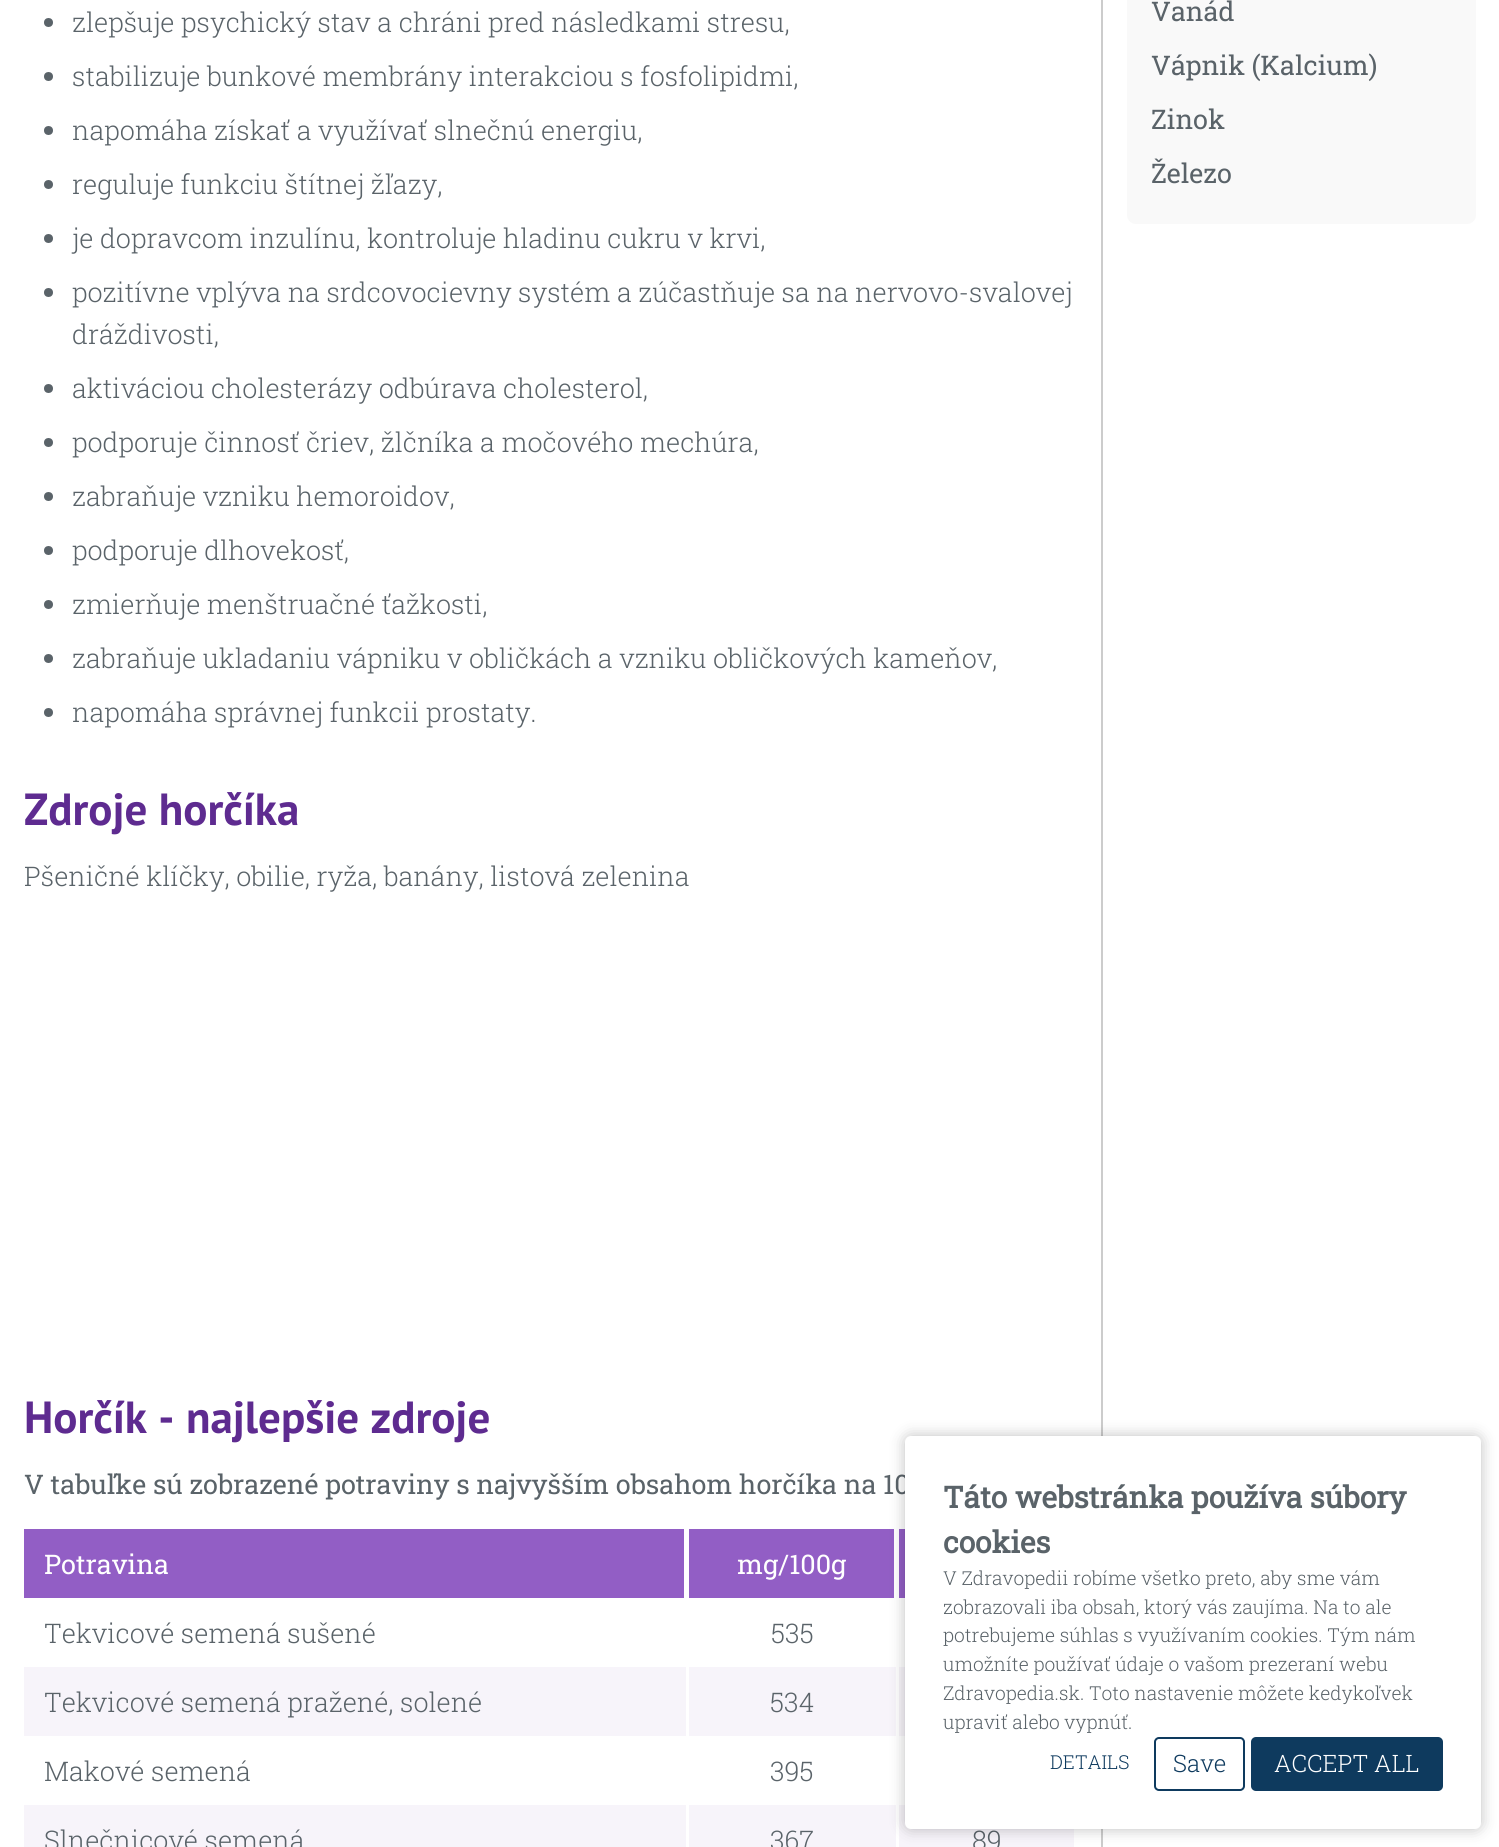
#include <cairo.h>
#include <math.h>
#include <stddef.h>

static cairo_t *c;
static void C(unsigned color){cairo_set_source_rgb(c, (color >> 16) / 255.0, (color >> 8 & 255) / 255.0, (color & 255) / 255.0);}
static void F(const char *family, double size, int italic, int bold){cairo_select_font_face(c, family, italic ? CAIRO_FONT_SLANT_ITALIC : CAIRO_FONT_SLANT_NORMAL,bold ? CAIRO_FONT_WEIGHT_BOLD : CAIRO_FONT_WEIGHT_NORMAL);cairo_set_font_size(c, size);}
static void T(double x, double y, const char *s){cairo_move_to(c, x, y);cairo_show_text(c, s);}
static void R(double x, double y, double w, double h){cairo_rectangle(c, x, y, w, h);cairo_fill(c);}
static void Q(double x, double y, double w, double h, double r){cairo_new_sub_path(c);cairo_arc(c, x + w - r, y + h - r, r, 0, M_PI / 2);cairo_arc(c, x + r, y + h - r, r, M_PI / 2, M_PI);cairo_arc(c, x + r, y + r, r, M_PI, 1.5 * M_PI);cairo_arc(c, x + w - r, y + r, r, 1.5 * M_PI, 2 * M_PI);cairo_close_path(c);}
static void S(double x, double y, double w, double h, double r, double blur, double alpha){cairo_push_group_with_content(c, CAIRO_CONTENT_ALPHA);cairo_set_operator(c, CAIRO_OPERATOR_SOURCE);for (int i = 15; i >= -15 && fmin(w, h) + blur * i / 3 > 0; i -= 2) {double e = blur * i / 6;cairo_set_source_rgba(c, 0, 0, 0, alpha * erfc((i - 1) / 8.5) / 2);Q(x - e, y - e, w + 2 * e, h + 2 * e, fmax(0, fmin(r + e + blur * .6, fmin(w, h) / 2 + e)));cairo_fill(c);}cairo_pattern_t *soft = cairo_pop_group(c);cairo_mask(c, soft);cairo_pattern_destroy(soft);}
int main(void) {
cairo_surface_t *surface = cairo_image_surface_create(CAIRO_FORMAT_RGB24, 1499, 1847);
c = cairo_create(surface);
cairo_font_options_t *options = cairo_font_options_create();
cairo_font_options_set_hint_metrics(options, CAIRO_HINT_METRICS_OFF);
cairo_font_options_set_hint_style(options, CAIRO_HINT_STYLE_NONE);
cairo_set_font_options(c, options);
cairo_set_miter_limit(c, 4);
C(0xffffff);
cairo_paint(c);
C(0x5a6369);
cairo_arc(c,48.5,22.5,4.5,0,2 * M_PI);
cairo_fill(c);
F("Roboto Slab Light",27,0,0);
T(72,32,"zlepšuje psychický stav a chráni pred následkami stresu,");
cairo_new_path(c);
cairo_arc(c,48.5,76.5,4.5,0,2 * M_PI);
cairo_fill(c);
T(72,86,"stabilizuje bunkové membrány interakciou s fosfolipidmi,");
cairo_new_path(c);
cairo_arc(c,48.5,130.5,4.5,0,2 * M_PI);
cairo_fill(c);
T(72,140,"napomáha získať a využívať slnečnú energiu,");
cairo_new_path(c);
cairo_arc(c,48.5,184.5,4.5,0,2 * M_PI);
cairo_fill(c);
T(72,194,"reguluje funkciu štítnej žľazy,");
cairo_new_path(c);
cairo_arc(c,48.5,238.5,4.5,0,2 * M_PI);
cairo_fill(c);
T(72,248,"je dopravcom inzulínu, kontroluje hladinu cukru v krvi,");
cairo_new_path(c);
cairo_arc(c,48.5,292.5,4.5,0,2 * M_PI);
cairo_fill(c);
T(72,302,"pozitívne vplýva na srdcovocievny systém a zúčastňuje sa na nervovo-svalovej");
T(72,344,"dráždivosti,");
cairo_new_path(c);
cairo_arc(c,48.5,388.5,4.5,0,2 * M_PI);
cairo_fill(c);
T(72,398,"aktiváciou cholesterázy odbúrava cholesterol,");
cairo_new_path(c);
cairo_arc(c,48.5,442.5,4.5,0,2 * M_PI);
cairo_fill(c);
T(72,452,"podporuje činnosť čriev, žlčníka a močového mechúra,");
cairo_new_path(c);
cairo_arc(c,48.5,496.5,4.5,0,2 * M_PI);
cairo_fill(c);
T(72,506,"zabraňuje vzniku hemoroidov,");
cairo_new_path(c);
cairo_arc(c,48.5,550.5,4.5,0,2 * M_PI);
cairo_fill(c);
T(72,560,"podporuje dlhovekosť,");
cairo_new_path(c);
cairo_arc(c,48.5,604.5,4.5,0,2 * M_PI);
cairo_fill(c);
T(72,614,"zmierňuje menštruačné ťažkosti,");
cairo_new_path(c);
cairo_arc(c,48.5,658.5,4.5,0,2 * M_PI);
cairo_fill(c);
T(72,668,"zabraňuje ukladaniu vápniku v obličkách a vzniku obličkových kameňov,");
cairo_new_path(c);
cairo_arc(c,48.5,712.5,4.5,0,2 * M_PI);
cairo_fill(c);
T(72,722,"napomáha správnej funkcii prostaty.");
F("PT Sans",45,0,1);
C(0x5e2b90);
T(24,825,"Zdroje horčíka");
F("Roboto Slab Light",27,0,0);
C(0x5a6369);
T(24,886,"Pšeničné klíčky, obilie, ryža, banány, listová zelenina");
F("PT Sans",45,0,1);
C(0x5e2b90);
T(24,1433,"Horčík - najlepšie zdroje");
F("Roboto Slab",27,0,0);
C(0x5a6369);
T(24,1494,"V tabuľke sú zobrazené potraviny s najvyšším obsahom horčíka na 10");
C(0x925ec5);
R(24,1529,660,69);
C(0xffffff);
T(44,1574,"Potravina");
C(0x925ec5);
R(689,1529,205,69);
C(0xffffff);
T(737,1574,"mg/100g");
C(0x925ec5);
R(899,1529,6,69);
F("Roboto Slab Light",27,0,0);
C(0x5a6369);
T(44,1643,"Tekvicové semená sušené");
T(771,1643,"535");
C(0xf7f4fa);
R(24,1667,881,69);
C(0x5a6369);
T(44,1712,"Tekvicové semená pražené, solené");
T(770,1712,"534");
C(0xffffff);
R(686,1665,3,72);
C(0x5a6369);
T(44,1781,"Makové semená");
C(0xffffff);
R(896,1665,3,72);
C(0x5a6369);
T(770,1781,"395");
C(0xf7f4fa);
R(24,1805,1050,42);
C(0xffffff);
R(686,1803,3,44);
C(0x5a6369);
T(44,1850,"Slnečnicové semená");
C(0xffffff);
R(896,1803,3,44);
C(0x5a6369);
T(770,1850,"367");
T(972,1850,"89");
C(0xcccccc);
R(1101,0,2,1847);
C(0xf9f9f9);
Q(1127,-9,349,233,9);
cairo_fill(c);
F("Roboto Slab",27,0,0);
C(0x5a6369);
T(1151,21,"Vanád");
T(1151,75,"Vápnik (Kalcium)");
T(1151,129,"Zinok");
T(1151,183,"Železo");
C(0x000000);
S(905,1436,576,393,6,7.5,.25);
C(0xffffff);
Q(905,1436,576,393,6);
cairo_fill(c);
F("Roboto Slab",30,0,1);
C(0x5a6369);
T(943,1508,"Táto webstránka používa súbory");
T(943,1553,"cookies");
F("Roboto Slab Light",19.2,0,0);
T(943,1585,"V Zdravopedii robíme všetko preto, aby sme vám");
T(943,1614,"zobrazovali iba obsah, ktorý vás zaujíma. Na to ale");
T(943,1642,"potrebujeme súhlas s využívaním cookies. Tým nám");
T(943,1671,"umožníte používať údaje o vašom prezeraní webu");
T(943,1700,"Zdravopedia.sk. Toto nastavenie môžete kedykoľvek");
T(943,1729,"upraviť alebo vypnúť.");
C(0x0e3a5e);
T(1050,1769,"DETAILS");
Q(1155,1738,89,52,4);
cairo_stroke(c);
F("Roboto Slab Light",24,0,0);
T(1173,1772,"Save");
Q(1251,1737,192,54,5);
cairo_fill(c);
C(0xffffff);
T(1274,1772,"ACCEPT ALL");
cairo_surface_write_to_png(surface, "o.png");
cairo_font_options_destroy(options);
cairo_destroy(c);
cairo_surface_destroy(surface);
return 0;
}
